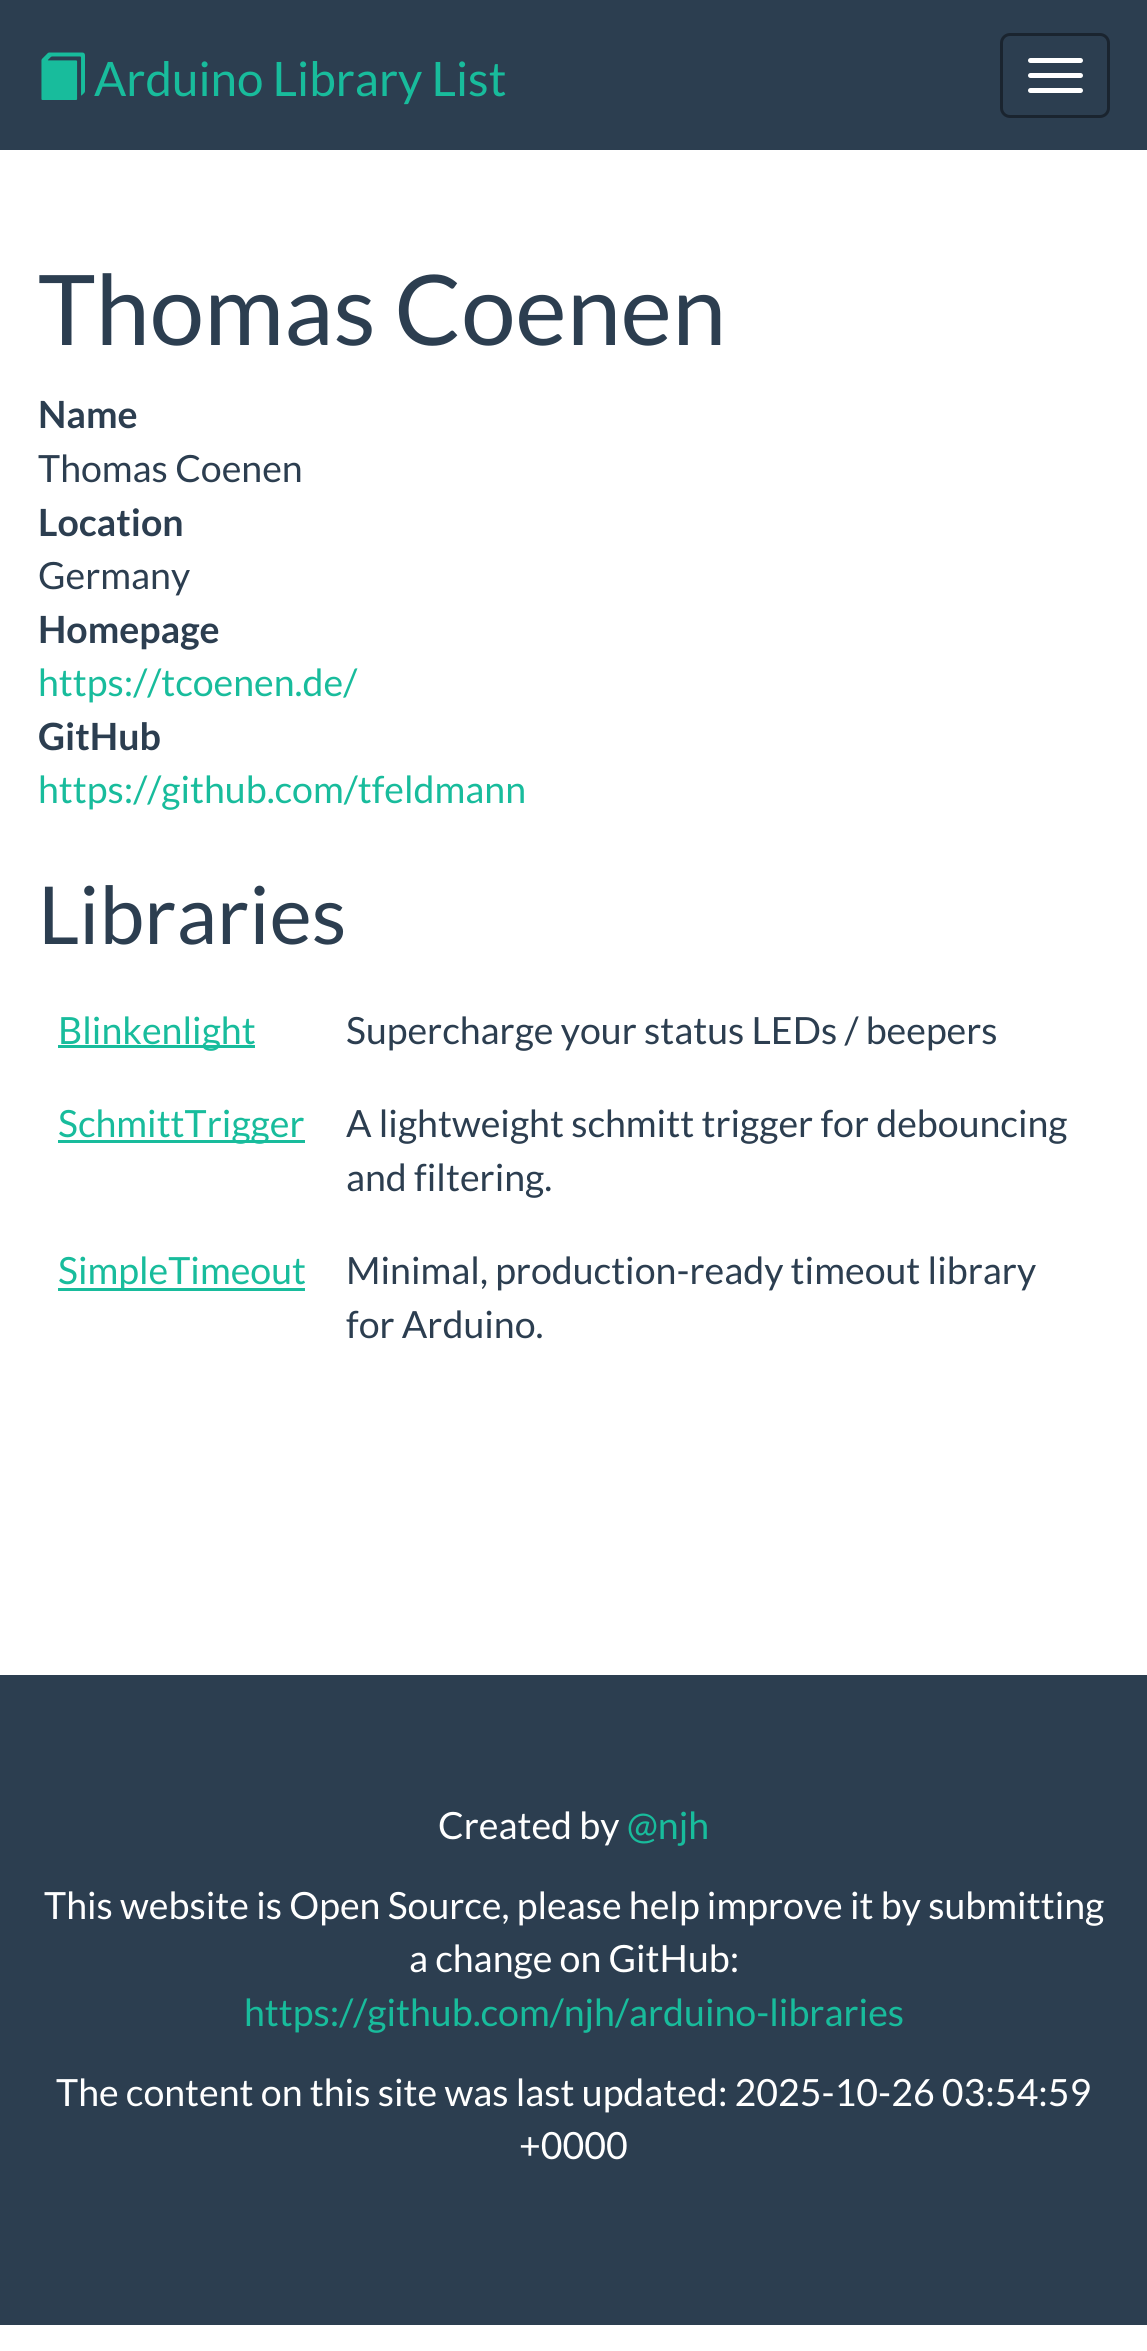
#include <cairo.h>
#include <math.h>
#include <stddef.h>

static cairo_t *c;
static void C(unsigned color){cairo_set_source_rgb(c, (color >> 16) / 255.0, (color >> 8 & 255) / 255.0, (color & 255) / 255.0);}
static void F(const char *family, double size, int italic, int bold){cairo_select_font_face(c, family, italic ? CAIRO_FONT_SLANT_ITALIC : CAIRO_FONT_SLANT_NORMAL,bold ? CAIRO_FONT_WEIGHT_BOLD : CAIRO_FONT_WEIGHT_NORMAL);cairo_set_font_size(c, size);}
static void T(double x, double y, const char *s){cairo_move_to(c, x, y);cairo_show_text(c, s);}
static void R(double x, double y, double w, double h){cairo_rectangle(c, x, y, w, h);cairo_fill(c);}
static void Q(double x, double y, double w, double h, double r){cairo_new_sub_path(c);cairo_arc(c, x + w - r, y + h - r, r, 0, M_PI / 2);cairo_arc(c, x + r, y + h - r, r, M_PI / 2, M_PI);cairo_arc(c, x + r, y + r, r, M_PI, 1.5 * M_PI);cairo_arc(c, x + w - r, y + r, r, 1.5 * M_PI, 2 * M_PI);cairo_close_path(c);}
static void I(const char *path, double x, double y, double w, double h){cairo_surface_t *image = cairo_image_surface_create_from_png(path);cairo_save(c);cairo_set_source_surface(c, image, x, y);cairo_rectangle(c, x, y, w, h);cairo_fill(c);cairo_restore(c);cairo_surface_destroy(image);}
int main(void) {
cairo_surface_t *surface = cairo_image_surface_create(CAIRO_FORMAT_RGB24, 1147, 2351);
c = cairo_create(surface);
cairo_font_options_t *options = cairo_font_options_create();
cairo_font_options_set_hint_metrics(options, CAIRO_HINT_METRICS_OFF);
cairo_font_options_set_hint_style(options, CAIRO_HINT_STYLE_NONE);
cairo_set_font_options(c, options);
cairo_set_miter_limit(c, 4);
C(0xffffff);
cairo_paint(c);
C(0x2c3e50);
R(0,0,1147,150);
I("1.png",41,52,44,48);
F("Lato",47.5,0,0);
C(0x18bc9c);
T(94,96,"Arduino Library List");
Q(1001.5,34.5,107,82,8.5);
C(0x1a242f);
cairo_set_line_width(c,3);
cairo_stroke(c);
C(0xffffff);
Q(1028,58,55,5,2.5);
cairo_fill(c);
Q(1028,73,55,5,2.5);
cairo_fill(c);
Q(1028,88,55,5,2.5);
cairo_fill(c);
F("Lato",97.5,0,0);
C(0x2c3e50);
T(38,345,"Thomas Coenen");
F("Lato",37.5,0,1);
T(38,428,"Name");
F("Lato",37.5,0,0);
T(38,482,"Thomas Coenen");
F("Lato",37.5,0,1);
T(38,536,"Location");
F("Lato",37.5,0,0);
T(38,589,"Germany");
F("Lato",37.5,0,1);
T(38,643,"Homepage");
F("Lato",37.5,0,0);
C(0x18bc9c);
T(38,696,"https://tcoenen.de/");
F("Lato",37.5,0,1);
C(0x2c3e50);
T(38,750,"GitHub");
F("Lato",37.5,0,0);
C(0x18bc9c);
T(38,803,"https://github.com/tfeldmann");
F("Lato",80,0,0);
C(0x2c3e50);
T(38,944,"Libraries");
C(0x18bc9c);
R(58,1045,197,3);
F("Lato",37.5,0,0);
T(58,1044,"Blinkenlight");
C(0x2c3e50);
T(346,1044,"Supercharge your status LEDs / beepers");
C(0x18bc9c);
R(58,1140,247,3);
T(58,1137,"SchmittTrigger");
C(0x2c3e50);
T(346,1137,"A lightweight schmitt trigger for debouncing");
T(346,1191,"and filtering.");
C(0x18bc9c);
R(58,1288,247,3);
T(58,1284,"SimpleTimeout");
C(0x2c3e50);
T(346,1284,"Minimal, production-ready timeout library");
T(346,1338,"for Arduino.");
R(0,1675,1147,650);
C(0xffffff);
T(438,1839,"Created by");
C(0x18bc9c);
T(627,1839,"@njh");
C(0xffffff);
T(44,1919,"This website is Open Source, please help improve it by submitting");
T(409,1972,"a change on GitHub:");
C(0x18bc9c);
T(244,2026,"https://github.com/njh/arduino-libraries");
C(0xffffff);
T(56,2106,"The content on this site was last updated: 2025-10-26 03:54:59");
T(519,2159,"+0000");
cairo_surface_write_to_png(surface, "o.png");
cairo_font_options_destroy(options);
cairo_destroy(c);
cairo_surface_destroy(surface);
return 0;
}
